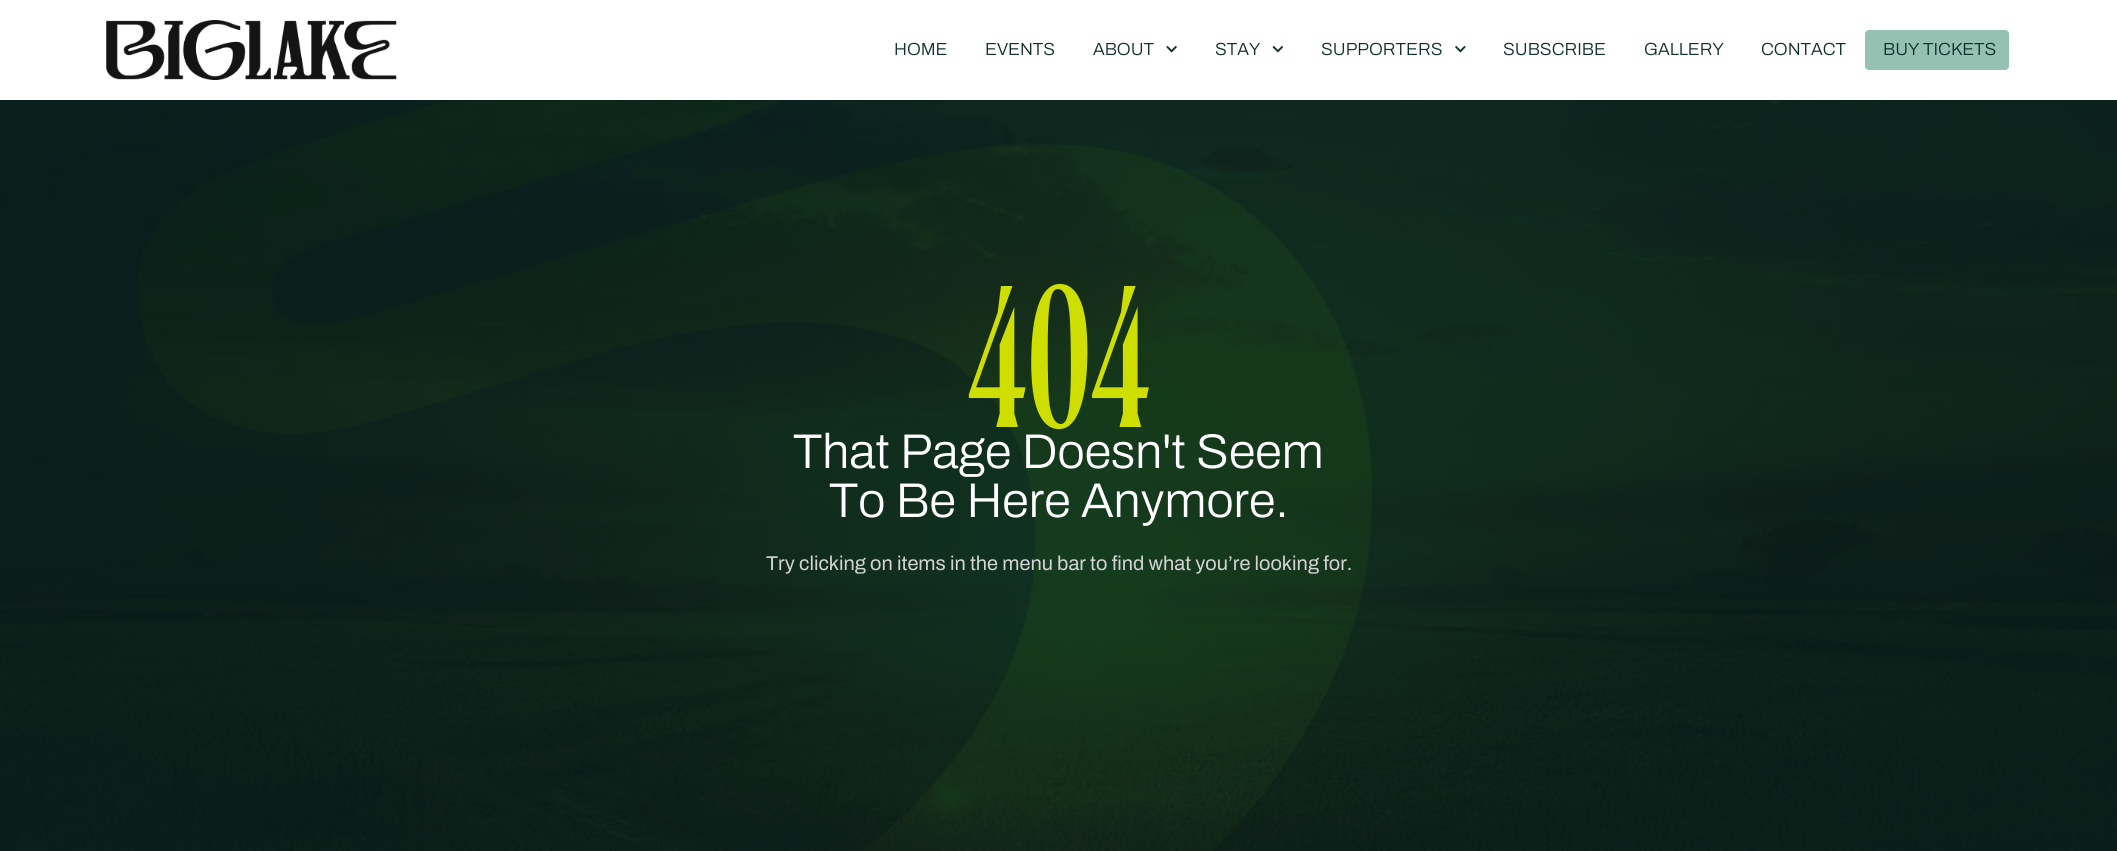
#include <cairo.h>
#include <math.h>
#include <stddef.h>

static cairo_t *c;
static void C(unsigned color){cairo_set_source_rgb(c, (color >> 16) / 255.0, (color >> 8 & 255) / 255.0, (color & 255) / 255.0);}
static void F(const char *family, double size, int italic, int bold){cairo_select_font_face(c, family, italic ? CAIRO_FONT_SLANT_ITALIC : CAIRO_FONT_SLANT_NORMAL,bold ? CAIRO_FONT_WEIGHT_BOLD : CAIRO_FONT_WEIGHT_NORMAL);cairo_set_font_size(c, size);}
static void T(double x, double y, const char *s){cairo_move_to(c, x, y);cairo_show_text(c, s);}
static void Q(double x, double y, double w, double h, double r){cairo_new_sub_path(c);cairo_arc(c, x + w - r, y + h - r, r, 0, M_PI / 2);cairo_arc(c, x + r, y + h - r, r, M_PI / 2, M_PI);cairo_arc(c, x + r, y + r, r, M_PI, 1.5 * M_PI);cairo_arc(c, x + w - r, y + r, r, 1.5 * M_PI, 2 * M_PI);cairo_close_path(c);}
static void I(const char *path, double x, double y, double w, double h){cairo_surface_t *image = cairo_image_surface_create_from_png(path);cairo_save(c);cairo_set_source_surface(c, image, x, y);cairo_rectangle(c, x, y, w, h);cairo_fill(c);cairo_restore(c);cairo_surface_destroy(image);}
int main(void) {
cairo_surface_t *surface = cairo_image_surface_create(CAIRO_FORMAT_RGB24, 2117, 851);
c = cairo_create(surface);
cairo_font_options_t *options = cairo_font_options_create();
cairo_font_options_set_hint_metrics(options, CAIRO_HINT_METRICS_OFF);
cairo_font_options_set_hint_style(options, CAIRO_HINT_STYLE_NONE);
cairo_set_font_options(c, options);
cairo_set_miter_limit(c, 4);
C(0xffffff);
cairo_paint(c);
I("1.png",106,20,291,60);
F("Archivo Light",17.5,0,0);
C(0x10312b);
T(894,55,"HOME");
T(985,55,"EVENTS");
T(1093,55,"ABOUT");
I("2.png",1166,46,11,7);
T(1215,55,"STAY");
I("3.png",1272,46,11,7);
T(1321,55,"SUPPORTERS");
I("4.png",1455,46,11,7);
T(1503,55,"SUBSCRIBE");
T(1644,55,"GALLERY");
T(1761,55,"CONTACT");
C(0x95c1b3);
Q(1865,30,144,40,4);
cairo_fill(c);
C(0x10312b);
T(1883,55,"BUY TICKETS");
I("5.png",0,100,2117,751);
F("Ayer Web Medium",188,0,0);
C(0xcdde00);
T(969,427,"404");
F("Archivo Light",48.75,0,0);
C(0xffffff);
T(793,468,"That Page Doesn't Seem");
T(829,517,"To Be Here Anymore.");
F("Archivo",20,0,0);
C(0xd3d3d3);
T(766,570,"Try clicking on items in the menu bar to find what you’re looking for.");
cairo_surface_write_to_png(surface, "o.png");
cairo_font_options_destroy(options);
cairo_destroy(c);
cairo_surface_destroy(surface);
return 0;
}
